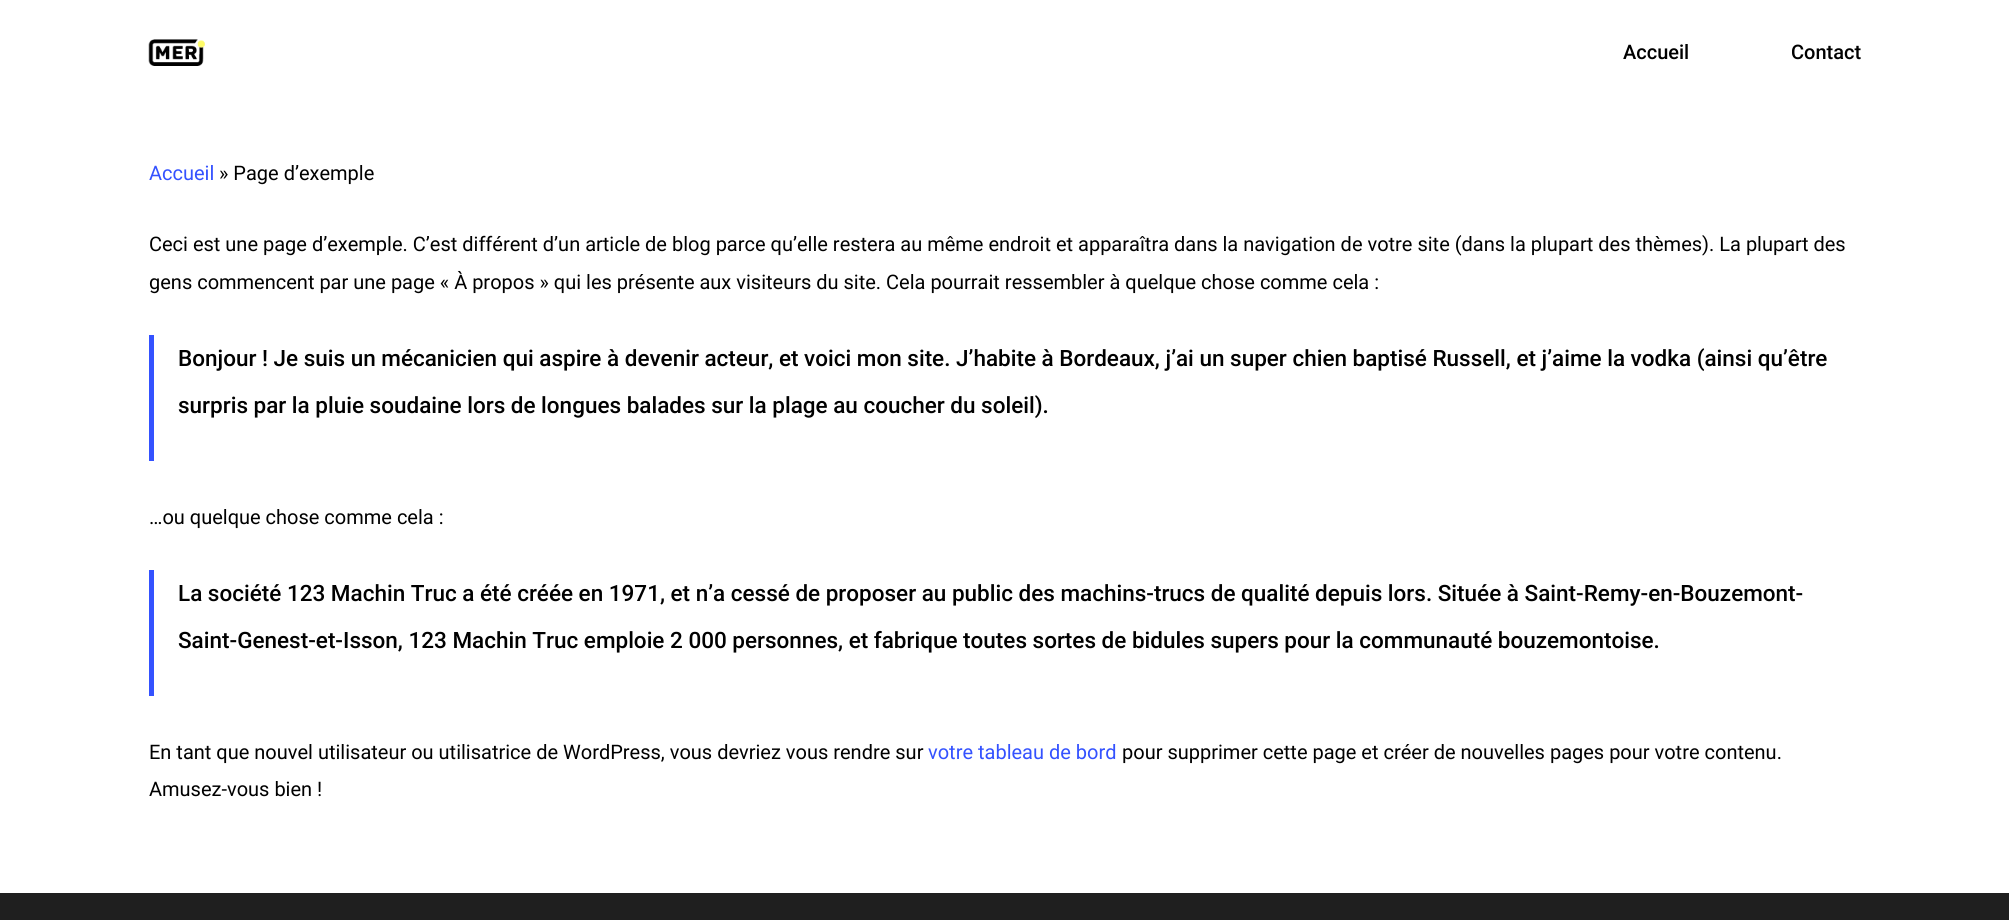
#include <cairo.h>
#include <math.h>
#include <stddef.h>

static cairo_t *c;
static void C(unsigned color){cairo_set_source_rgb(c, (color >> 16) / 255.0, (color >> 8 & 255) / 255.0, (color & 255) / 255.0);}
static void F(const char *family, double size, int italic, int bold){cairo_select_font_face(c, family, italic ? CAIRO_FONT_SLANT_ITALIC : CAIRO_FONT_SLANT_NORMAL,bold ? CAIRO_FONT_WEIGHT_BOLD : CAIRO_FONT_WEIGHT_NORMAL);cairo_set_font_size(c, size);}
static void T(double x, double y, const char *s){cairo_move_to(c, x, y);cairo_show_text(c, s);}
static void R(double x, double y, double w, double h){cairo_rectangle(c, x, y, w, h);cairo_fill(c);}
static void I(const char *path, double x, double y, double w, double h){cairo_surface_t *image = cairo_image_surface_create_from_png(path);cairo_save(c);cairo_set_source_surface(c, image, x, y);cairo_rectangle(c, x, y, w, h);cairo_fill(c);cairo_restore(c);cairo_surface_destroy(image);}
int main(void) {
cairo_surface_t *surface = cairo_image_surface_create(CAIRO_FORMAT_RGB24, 2009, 920);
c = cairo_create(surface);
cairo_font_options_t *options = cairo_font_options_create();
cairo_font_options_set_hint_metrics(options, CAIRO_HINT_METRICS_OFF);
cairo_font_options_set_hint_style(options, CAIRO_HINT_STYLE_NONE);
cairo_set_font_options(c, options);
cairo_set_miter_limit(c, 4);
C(0xffffff);
cairo_paint(c);
I("1.png",148,39,57,27);
F("Roboto Medium",20,0,0);
C(0x000000);
T(1623,59,"Accueil");
T(1791,59,"Contact");
F("Roboto",20,0,0);
C(0x3452ff);
T(149,180,"Accueil");
C(0x000000);
T(219,180,"» Page d’exemple");
T(149,251,"Ceci est une page d’exemple. C’est différent d’un article de blog parce qu’elle restera au même endroit et apparaîtra dans la navigation de votre site (dans la plupart des thèmes). La plupart des");
T(149,289,"gens commencent par une page « À propos » qui les présente aux visiteurs du site. Cela pourrait ressembler à quelque chose comme cela :");
C(0x3452ff);
R(149,335,5,126);
F("Roboto Medium",22.5,0,0);
C(0x000000);
T(178,366,"Bonjour ! Je suis un mécanicien qui aspire à devenir acteur, et voici mon site. J’habite à Bordeaux, j’ai un super chien baptisé Russell, et j’aime la vodka (ainsi qu’être");
T(178,413,"surpris par la pluie soudaine lors de longues balades sur la plage au coucher du soleil).");
F("Roboto",20,0,0);
T(149,524,"…ou quelque chose comme cela :");
C(0x3452ff);
R(149,570,5,126);
F("Roboto Medium",22.5,0,0);
C(0x000000);
T(178,601,"La société 123 Machin Truc a été créée en 1971, et n’a cessé de proposer au public des machins-trucs de qualité depuis lors. Située à Saint-Remy-en-Bouzemont-");
T(178,648,"Saint-Genest-et-Isson, 123 Machin Truc emploie 2 000 personnes, et fabrique toutes sortes de bidules supers pour la communauté bouzemontoise.");
F("Roboto",20,0,0);
T(149,759,"En tant que nouvel utilisateur ou utilisatrice de WordPress, vous devriez vous rendre sur");
C(0x3452ff);
T(928,759,"votre tableau de bord");
C(0x000000);
T(1122,759,"pour supprimer cette page et créer de nouvelles pages pour votre contenu.");
T(149,796,"Amusez-vous bien !");
C(0x1f1f1f);
R(0,893,2009,27);
cairo_surface_write_to_png(surface, "o.png");
cairo_font_options_destroy(options);
cairo_destroy(c);
cairo_surface_destroy(surface);
return 0;
}
